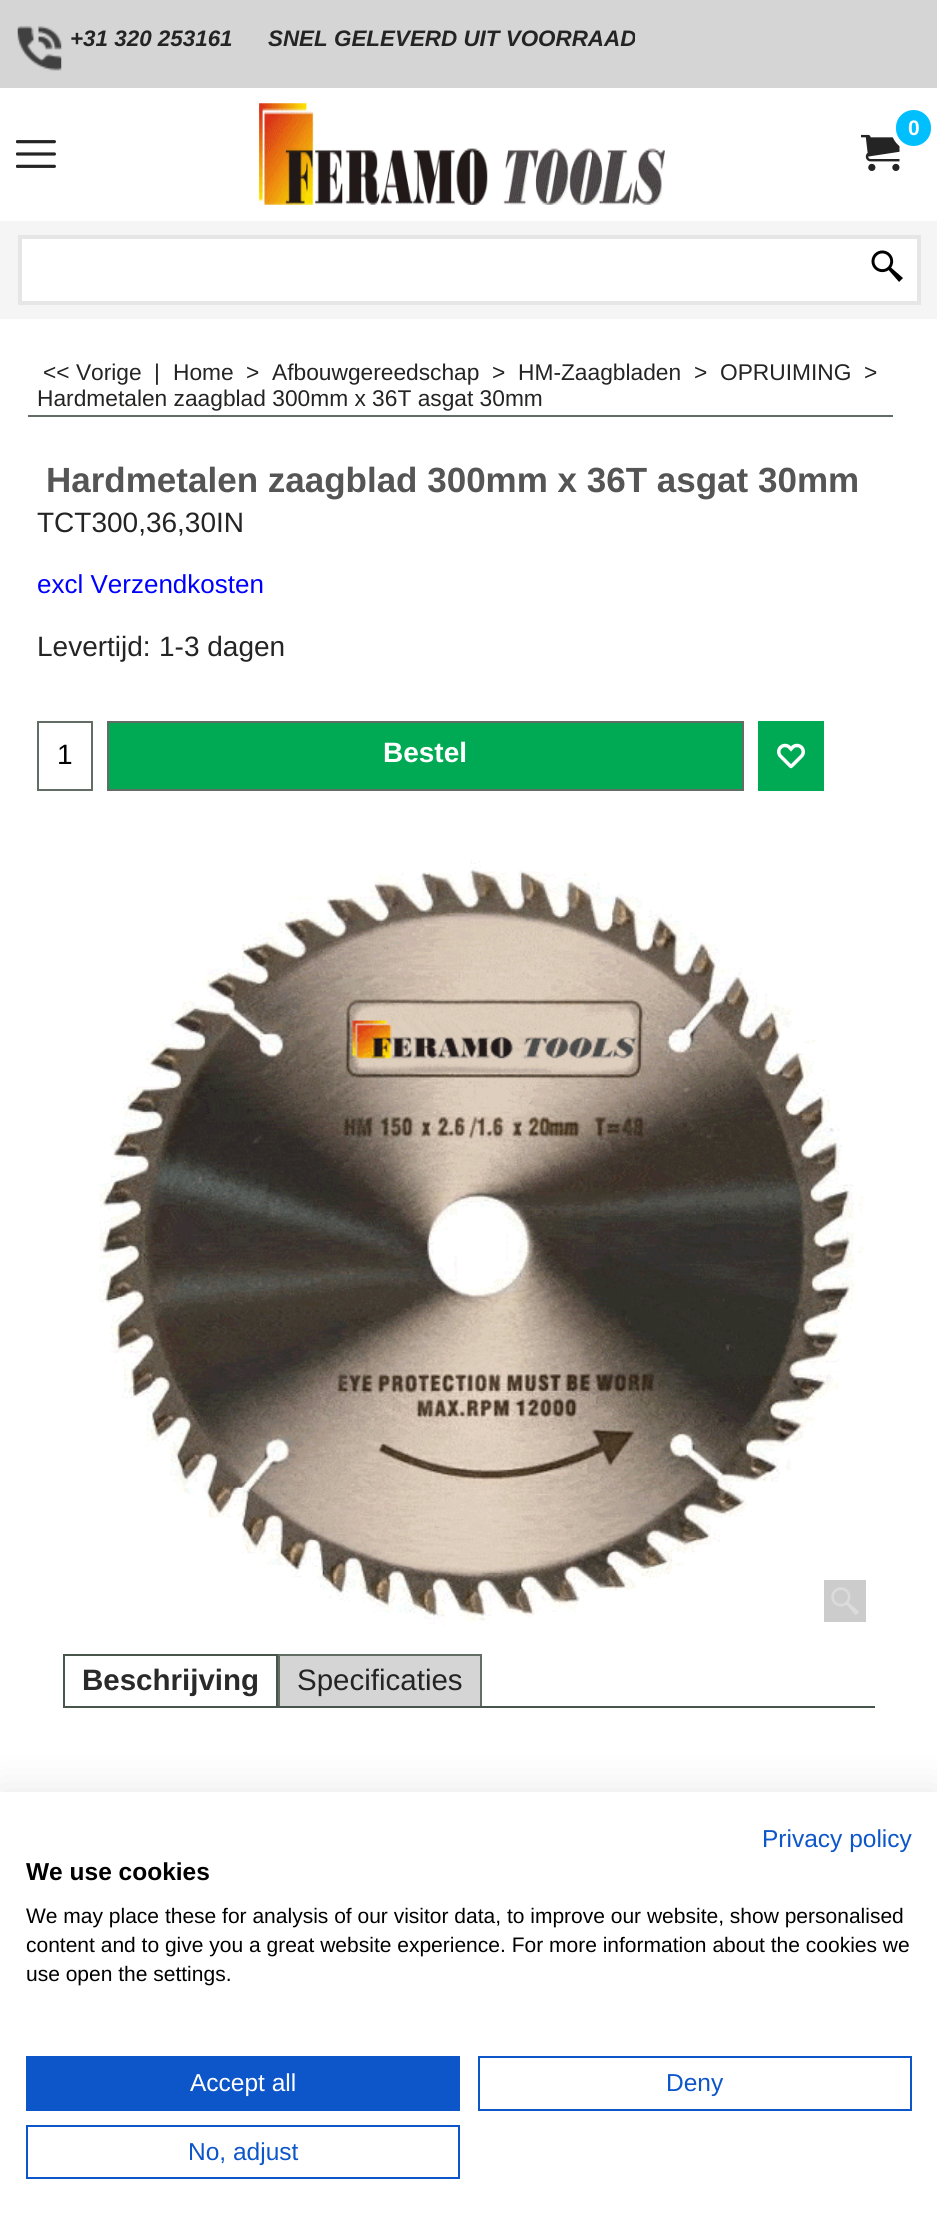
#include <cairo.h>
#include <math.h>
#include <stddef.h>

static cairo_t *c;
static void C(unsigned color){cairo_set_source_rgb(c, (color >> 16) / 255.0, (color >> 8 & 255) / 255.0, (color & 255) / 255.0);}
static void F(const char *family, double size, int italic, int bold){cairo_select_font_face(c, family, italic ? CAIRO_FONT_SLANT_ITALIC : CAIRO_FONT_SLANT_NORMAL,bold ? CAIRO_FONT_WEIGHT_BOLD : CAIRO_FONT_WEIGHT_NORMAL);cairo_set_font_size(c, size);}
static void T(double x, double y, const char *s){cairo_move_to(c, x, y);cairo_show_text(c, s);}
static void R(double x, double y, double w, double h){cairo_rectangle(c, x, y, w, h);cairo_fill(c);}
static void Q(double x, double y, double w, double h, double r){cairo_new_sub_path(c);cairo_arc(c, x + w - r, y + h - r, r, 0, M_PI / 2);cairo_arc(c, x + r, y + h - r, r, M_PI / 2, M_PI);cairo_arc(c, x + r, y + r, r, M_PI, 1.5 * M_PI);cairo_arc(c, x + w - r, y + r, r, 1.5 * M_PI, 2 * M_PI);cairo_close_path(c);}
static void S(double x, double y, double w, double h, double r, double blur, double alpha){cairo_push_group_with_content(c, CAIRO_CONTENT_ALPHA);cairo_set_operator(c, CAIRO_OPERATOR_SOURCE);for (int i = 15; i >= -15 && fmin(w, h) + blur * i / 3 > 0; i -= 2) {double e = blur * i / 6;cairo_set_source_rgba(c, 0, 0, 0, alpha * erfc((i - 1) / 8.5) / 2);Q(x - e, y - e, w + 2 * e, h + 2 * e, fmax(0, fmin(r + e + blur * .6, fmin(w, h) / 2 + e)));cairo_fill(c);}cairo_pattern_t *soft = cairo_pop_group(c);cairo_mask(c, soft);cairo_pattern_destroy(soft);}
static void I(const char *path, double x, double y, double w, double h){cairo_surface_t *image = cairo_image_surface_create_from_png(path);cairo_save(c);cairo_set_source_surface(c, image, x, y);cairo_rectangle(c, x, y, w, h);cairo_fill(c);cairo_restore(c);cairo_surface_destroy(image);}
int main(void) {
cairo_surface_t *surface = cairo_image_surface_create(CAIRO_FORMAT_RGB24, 937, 2226);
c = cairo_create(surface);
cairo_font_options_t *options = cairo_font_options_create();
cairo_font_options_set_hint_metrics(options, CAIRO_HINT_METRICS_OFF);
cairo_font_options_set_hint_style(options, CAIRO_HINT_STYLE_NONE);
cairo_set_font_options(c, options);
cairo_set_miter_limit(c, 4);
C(0xffffff);
cairo_paint(c);
C(0xd5d5d5);
R(0,0,937,88);
I("1.png",17,25,45,46);
F("Liberation Sans",22.4,1,1);
C(0x242424);
T(70,46,"+31 320 253161");
cairo_save(c);
cairo_rectangle(c,18,0,617,88);
cairo_clip(c);
T(268,46,"SNEL GELEVERD UIT VOORRAAD");
cairo_restore(c);
I("2.png",259,103,406,102);
I("3.png",861,134,39,37);
C(0x00bfff);
Q(893.5,107.5,40,41,20);
cairo_fill_preserve(c);
C(0xffffff);
cairo_set_line_width(c,5);
cairo_stroke(c);
F("Liberation Sans",21,0,1);
T(908,135,"0");
I("4.png",16,140,40,28);
C(0xf5f5f6);
R(0,221,937,98);
C(0xffffff);
cairo_rectangle(c,20,237,899,66);
cairo_fill_preserve(c);
C(0xe6e6e6);
cairo_set_line_width(c,4);
cairo_stroke(c);
I("5.png",871,250,32,32);
C(0x626d66);
R(28,415,865,2);
F("Liberation Sans",22.75,0,0);
C(0x242424);
T(43,380,"<< Vorige");
T(154,380,"|");
T(173,380,"Home");
T(246,380,">");
T(272,380,"Afbouwgereedschap");
T(492,380,">");
T(518,380,"HM-Zaagbladen");
T(694,380,">");
T(720,380,"OPRUIMING");
T(864,380,">");
T(37,406,"Hardmetalen zaagblad 300mm x 36T asgat 30mm");
F("Liberation Sans",35,0,1);
C(0x555555);
T(46,492,"Hardmetalen zaagblad 300mm x 36T asgat 30mm");
F("Liberation Sans",28,0,0);
C(0x242424);
T(37,532,"TCT300,36,30IN");
F("Liberation Sans",26,0,0);
C(0x0000ff);
T(37,593,"excl Verzendkosten");
F("Liberation Sans",28,0,0);
C(0x242424);
T(37,656,"Levertijd:");
T(159,656,"1-3 dagen");
cairo_rectangle(c,38,722,54,68);
C(0x626d66);
cairo_set_line_width(c,2);
cairo_stroke(c);
C(0x000000);
T(57,764,"1");
C(0x00aa54);
cairo_rectangle(c,108,722,635,68);
cairo_fill_preserve(c);
C(0x626d66);
cairo_stroke(c);
F("Liberation Sans",28,0,1);
C(0xffffff);
T(383,762,"Bestel");
C(0x00aa54);
R(758,721,66,70);
I("6.png",777,743,28,26);
I("7.png",99,861,764,764);
C(0xcccccc);
R(824,1580,42,42);
I("8.png",831,1587,28,28);
C(0x48554d);
R(63,1654,215,2);
R(63,1706,812,2);
cairo_new_path(c);
cairo_move_to(c,278,1654);
cairo_line_to(c,278,1708);
cairo_line_to(c,276,1706);
cairo_line_to(c,276,1656);
cairo_close_path(c);
cairo_fill(c);
cairo_new_path(c);
cairo_move_to(c,63,1708);
cairo_line_to(c,63,1654);
cairo_line_to(c,65,1656);
cairo_line_to(c,65,1706);
cairo_close_path(c);
cairo_fill(c);
F("Liberation Sans",29.5,0,1);
C(0x2a2a2a);
T(82,1690,"Beschrijving");
C(0xd5d5d5);
R(280,1656,200,50);
C(0x626d66);
R(278,1654,203,2);
R(480,1654,2,52);
R(278,1654,2,52);
F("Liberation Sans",29.5,0,0);
C(0x242424);
T(297,1690,"Specificaties");
C(0x000000);
S(0,1792,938,434,0,21,.1);
C(0xffffff);
R(0,1792,937,434);
F("Liberation Sans",24.5,0,0);
C(0x0d56c9);
T(762,1847,"Privacy policy");
F("Liberation Sans",24.5,0,1);
C(0x000000);
T(26,1880,"We use cookies");
F("Liberation Sans",21,0,0);
T(26,1923,"We may place these for analysis of our visitor data, to improve our website, show personalised");
T(26,1952,"content and to give you a great website experience. For more information about the cookies we");
T(26,1981,"use open the settings.");
C(0x0d56c9);
R(26,2056,434,55);
F("Liberation Sans",24.5,0,0);
C(0xffffff);
T(190,2091,"Accept all");
cairo_rectangle(c,479,2057,432,53);
C(0x0d56c9);
cairo_stroke(c);
T(666,2091,"Deny");
cairo_rectangle(c,27,2126,432,52);
cairo_stroke(c);
T(188,2160,"No, adjust");
cairo_surface_write_to_png(surface, "o.png");
cairo_font_options_destroy(options);
cairo_destroy(c);
cairo_surface_destroy(surface);
return 0;
}
